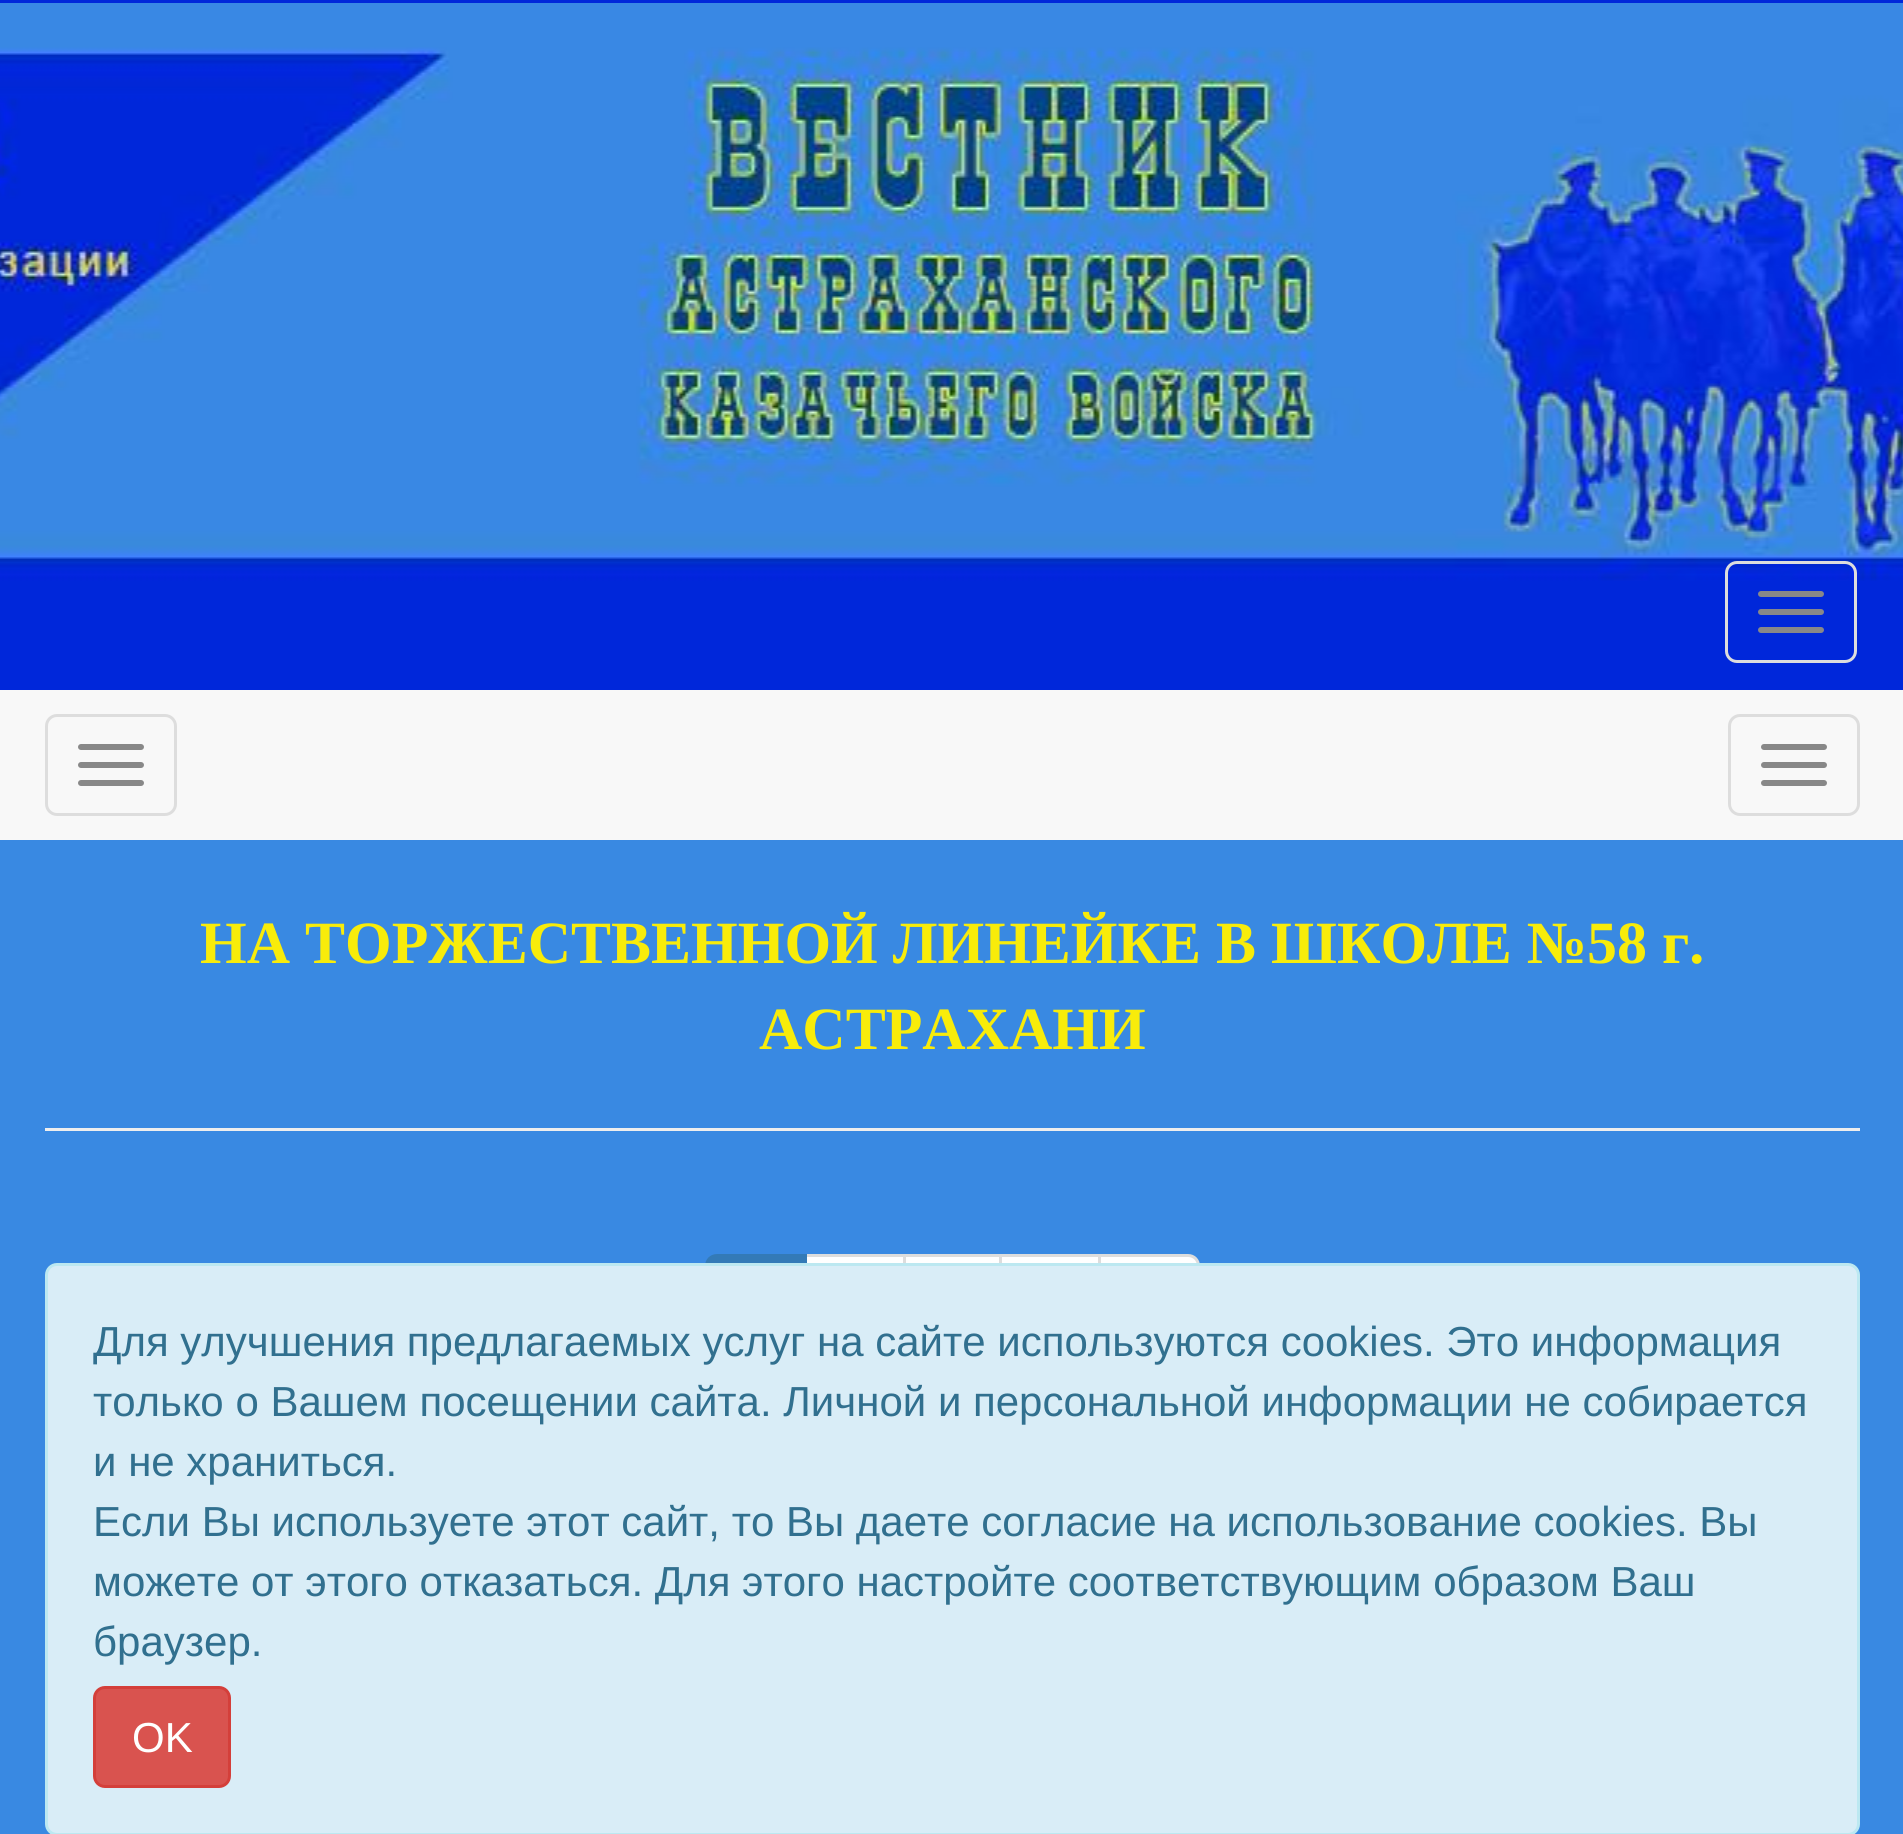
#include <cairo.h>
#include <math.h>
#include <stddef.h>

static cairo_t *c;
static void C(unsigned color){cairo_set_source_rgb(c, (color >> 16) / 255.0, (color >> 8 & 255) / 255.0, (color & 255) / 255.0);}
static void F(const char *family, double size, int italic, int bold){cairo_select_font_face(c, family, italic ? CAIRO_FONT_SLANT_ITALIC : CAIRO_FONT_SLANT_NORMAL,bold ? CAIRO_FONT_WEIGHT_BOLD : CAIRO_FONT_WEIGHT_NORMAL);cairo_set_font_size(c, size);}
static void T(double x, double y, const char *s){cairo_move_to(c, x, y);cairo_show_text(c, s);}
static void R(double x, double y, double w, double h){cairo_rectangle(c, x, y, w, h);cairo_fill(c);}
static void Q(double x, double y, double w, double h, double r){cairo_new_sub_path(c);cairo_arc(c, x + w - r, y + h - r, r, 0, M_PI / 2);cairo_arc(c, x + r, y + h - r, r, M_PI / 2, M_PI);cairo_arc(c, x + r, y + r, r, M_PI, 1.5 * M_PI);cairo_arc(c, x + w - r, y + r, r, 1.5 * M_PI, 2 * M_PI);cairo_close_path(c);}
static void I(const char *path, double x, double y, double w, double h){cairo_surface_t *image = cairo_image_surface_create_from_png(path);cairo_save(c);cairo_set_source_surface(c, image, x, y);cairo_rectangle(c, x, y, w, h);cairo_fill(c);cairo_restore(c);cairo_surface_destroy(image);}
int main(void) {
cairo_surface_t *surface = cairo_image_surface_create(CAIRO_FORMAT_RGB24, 1903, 1834);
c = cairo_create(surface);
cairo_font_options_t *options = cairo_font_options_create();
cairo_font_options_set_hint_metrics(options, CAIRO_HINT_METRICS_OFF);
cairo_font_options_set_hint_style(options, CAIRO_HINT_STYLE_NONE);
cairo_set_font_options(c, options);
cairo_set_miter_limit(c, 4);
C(0x3989e2);
cairo_paint(c);
C(0x0027da);
R(0,0,1903,690);
I("1.png",0,3,1903,578);
Q(1726.5,562.5,129,99,10.5);
C(0xdddddd);
cairo_set_line_width(c,3);
cairo_stroke(c);
C(0x888888);
Q(1758,591,66,6,3);
cairo_fill(c);
Q(1758,609,66,6,3);
cairo_fill(c);
Q(1758,627,66,6,3);
cairo_fill(c);
C(0xf8f8f8);
R(0,690,1903,150);
Q(46.5,715.5,129,99,10.5);
C(0xdddddd);
cairo_stroke(c);
C(0x888888);
Q(78,744,66,6,3);
cairo_fill(c);
Q(78,762,66,6,3);
cairo_fill(c);
Q(78,780,66,6,3);
cairo_fill(c);
Q(1729.5,715.5,129,99,10.5);
C(0xdddddd);
cairo_stroke(c);
C(0x888888);
Q(1761,744,66,6,3);
cairo_fill(c);
Q(1761,762,66,6,3);
cairo_fill(c);
Q(1761,780,66,6,3);
cairo_fill(c);
C(0xeeeeee);
R(45,1128,1815,3);
F("Liberation Serif",60,0,1);
C(0xf8ec0a);
T(200,963,"НА ТОРЖЕСТВЕННОЙ ЛИНЕЙКЕ В ШКОЛЕ №58 г.");
T(759,1049,"АСТРАХАНИ");
C(0xffffff);
R(807,1257,96,6);
cairo_rectangle(c,805.5,1255.5,99,99);
C(0xdddddd);
cairo_stroke(c);
C(0x337ab7);
cairo_new_path(c);
cairo_move_to(c,717,1255.5);
cairo_line_to(c,805.5,1255.5);
cairo_line_to(c,805.5,1354.5);
cairo_line_to(c,717,1354.5);
cairo_curve_to(c,711,1354.5,706.5,1350,706.5,1344);
cairo_line_to(c,706.5,1266);
cairo_curve_to(c,706.5,1260,711,1255.5,717,1255.5);
cairo_close_path(c);
cairo_fill_preserve(c);
cairo_stroke(c);
C(0xffffff);
R(906,1257,93,6);
cairo_rectangle(c,904.5,1255.5,96,99);
C(0xdddddd);
cairo_stroke(c);
C(0xffffff);
R(1002,1257,96,6);
cairo_rectangle(c,1000.5,1255.5,99,99);
C(0xdddddd);
cairo_stroke(c);
C(0xffffff);
cairo_new_path(c);
cairo_move_to(c,1099.5,1255.5);
cairo_line_to(c,1188,1255.5);
cairo_curve_to(c,1194,1255.5,1198.5,1260,1198.5,1266);
cairo_line_to(c,1198.5,1344);
cairo_curve_to(c,1198.5,1350,1194,1354.5,1188,1354.5);
cairo_line_to(c,1099.5,1354.5);
cairo_close_path(c);
cairo_fill_preserve(c);
C(0xdddddd);
cairo_stroke(c);
C(0xd9edf7);
Q(46.5,1264.5,1812,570,10.5);
cairo_fill_preserve(c);
C(0xbce8f1);
cairo_stroke(c);
F("Liberation Sans",42,0,0);
C(0x31708f);
T(93,1356,"Для улучшения предлагаемых услуг на сайте используются cookies. Это информация");
T(93,1416,"только о Вашем посещении сайта. Личной и персональной информации не собирается");
T(93,1476,"и не храниться.");
T(93,1536,"Если Вы используете этот сайт, то Вы даете согласие на использование cookies. Вы");
T(93,1596,"можете от этого отказаться. Для этого настройте соответствующим образом Ваш");
T(93,1656,"браузер.");
C(0xd9534f);
Q(94.5,1687.5,135,99,10.5);
cairo_fill_preserve(c);
C(0xd43f3a);
cairo_stroke(c);
C(0xffffff);
T(132,1752,"OK");
cairo_surface_write_to_png(surface, "o.png");
cairo_font_options_destroy(options);
cairo_destroy(c);
cairo_surface_destroy(surface);
return 0;
}
